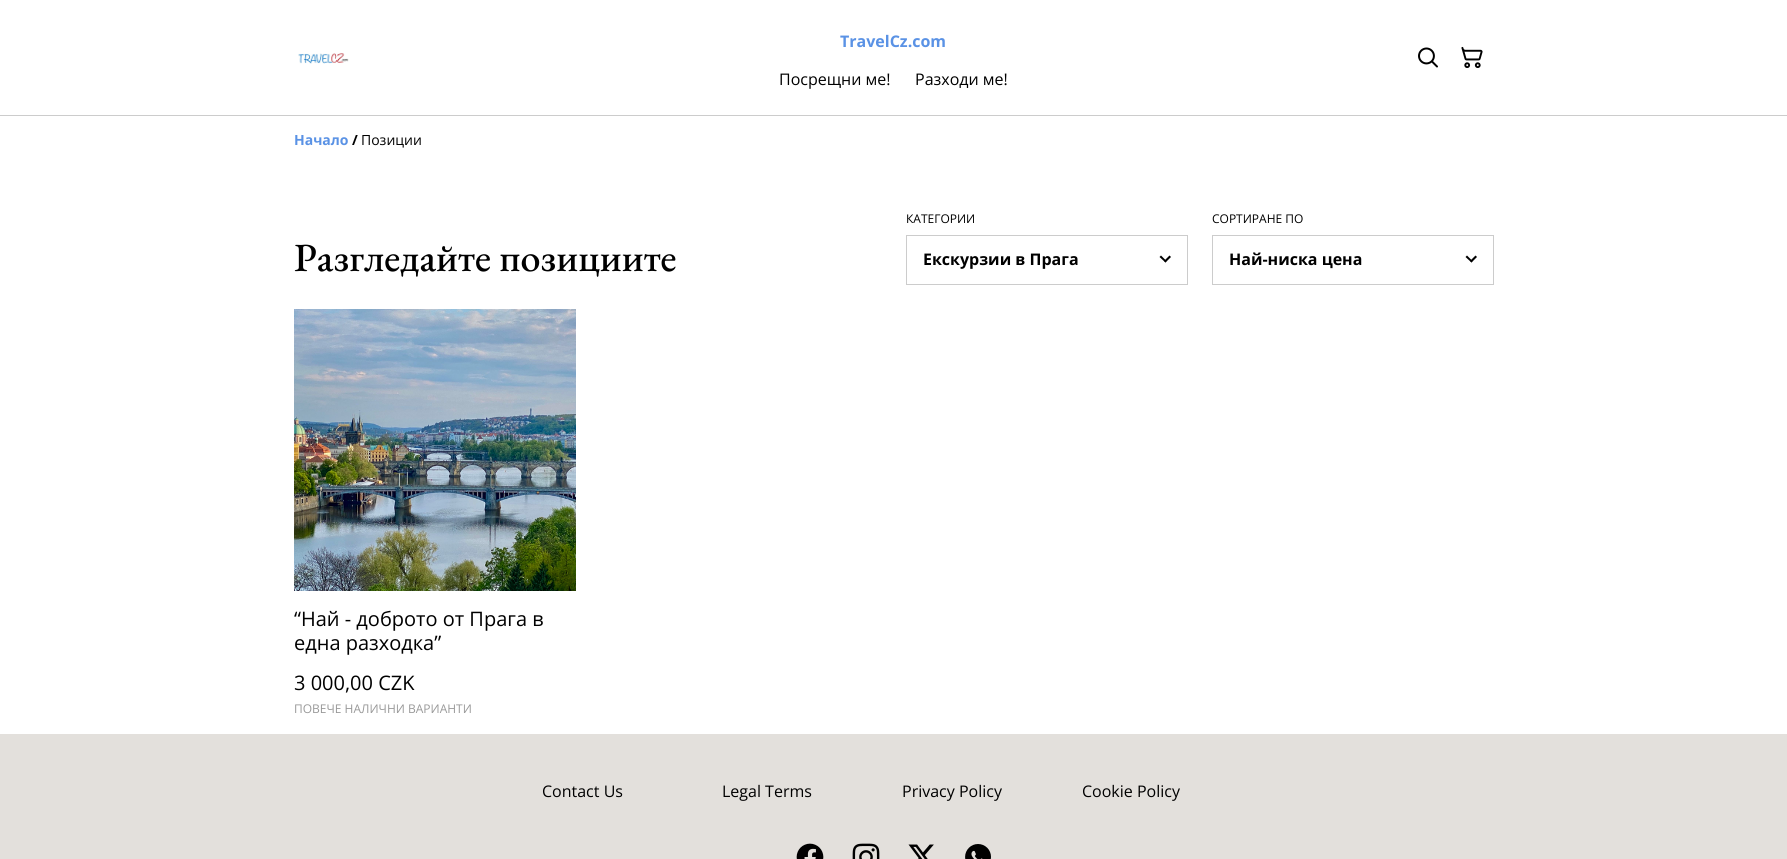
#include <cairo.h>
#include <math.h>
#include <stddef.h>

static cairo_t *c;
static void C(unsigned color){cairo_set_source_rgb(c, (color >> 16) / 255.0, (color >> 8 & 255) / 255.0, (color & 255) / 255.0);}
static void F(const char *family, double size, int italic, int bold){cairo_select_font_face(c, family, italic ? CAIRO_FONT_SLANT_ITALIC : CAIRO_FONT_SLANT_NORMAL,bold ? CAIRO_FONT_WEIGHT_BOLD : CAIRO_FONT_WEIGHT_NORMAL);cairo_set_font_size(c, size);}
static void T(double x, double y, const char *s){cairo_move_to(c, x, y);cairo_show_text(c, s);}
static void R(double x, double y, double w, double h){cairo_rectangle(c, x, y, w, h);cairo_fill(c);}
static void I(const char *path, double x, double y, double w, double h){cairo_surface_t *image = cairo_image_surface_create_from_png(path);cairo_save(c);cairo_set_source_surface(c, image, x, y);cairo_rectangle(c, x, y, w, h);cairo_fill(c);cairo_restore(c);cairo_surface_destroy(image);}
int main(void) {
cairo_surface_t *surface = cairo_image_surface_create(CAIRO_FORMAT_RGB24, 1787, 859);
c = cairo_create(surface);
cairo_font_options_t *options = cairo_font_options_create();
cairo_font_options_set_hint_metrics(options, CAIRO_HINT_METRICS_OFF);
cairo_font_options_set_hint_style(options, CAIRO_HINT_STYLE_NONE);
cairo_set_font_options(c, options);
cairo_set_miter_limit(c, 4);
C(0xffffff);
cairo_paint(c);
C(0xcccccc);
R(0,115,1787,1);
I("1.png",298,53,51,11);
F("Open Sans",16,0,1);
C(0x5a92e5);
T(840,47,"TravelCz.com");
F("Open Sans",16,0,0);
C(0x000000);
T(779,85,"Посрещни ме!");
T(915,85,"Разходи ме!");
I("2.png",1418,47,20,21);
I("3.png",1461,46,22,22);
F("Open Sans",14,0,1);
C(0x5a92e5);
T(294,145,"Начало");
C(0x000000);
T(352,145,"/");
F("Open Sans",14,0,0);
T(361,145,"Позиции");
F("EB Garamond Medium",40,0,0);
T(294,271,"Разгледайте позициите");
F("Open Sans",12,0,0);
T(906,223,"КАТЕГОРИИ");
cairo_rectangle(c,906.5,235.5,281,49);
C(0xcccccc);
cairo_set_line_width(c,1);
cairo_stroke(c);
F("Open Sans",16,0,1);
C(0x000000);
T(923,265,"Екскурзии в Прага");
cairo_new_path(c);
cairo_move_to(c,1169.5,255.5);
cairo_line_to(c,1171,257);
cairo_line_to(c,1165.5,262.5);
cairo_line_to(c,1164,261);
cairo_close_path(c);
cairo_fill(c);
cairo_new_path(c);
cairo_move_to(c,1161,255.5);
cairo_line_to(c,1166.5,261);
cairo_line_to(c,1165.5,262.5);
cairo_line_to(c,1159.5,257);
cairo_close_path(c);
cairo_fill(c);
F("Open Sans",12,0,0);
T(1212,223,"СОРТИРАНЕ ПО");
cairo_rectangle(c,1212.5,235.5,281,49);
C(0xcccccc);
cairo_stroke(c);
F("Open Sans",16,0,1);
C(0x000000);
T(1229,265,"Най-ниска цена");
cairo_new_path(c);
cairo_move_to(c,1475.5,255.5);
cairo_line_to(c,1477,257);
cairo_line_to(c,1471.5,262.5);
cairo_line_to(c,1470,261);
cairo_close_path(c);
cairo_fill(c);
cairo_new_path(c);
cairo_move_to(c,1467,255.5);
cairo_line_to(c,1472.5,261);
cairo_line_to(c,1471.5,262.5);
cairo_line_to(c,1465.5,257);
cairo_close_path(c);
cairo_fill(c);
I("4.png",294,309,282,282);
F("Open Sans",20,0,0);
T(294,626,"“Най - доброто от Прага в");
T(294,650,"една разходка”");
T(294,690,"3 000,00 CZK");
F("Open Sans",12,0,0);
C(0x999999);
T(294,713,"ПОВЕЧЕ НАЛИЧНИ ВАРИАНТИ");
C(0xe3e0dc);
R(0,734,1787,125);
F("Open Sans",16,0,0);
C(0x000000);
T(542,797,"Contact Us");
T(722,797,"Legal Terms");
T(902,797,"Privacy Policy");
T(1082,797,"Cookie Policy");
I("5.png",796,843,28,16);
I("6.png",852,843,28,16);
I("7.png",908,844,26,15);
I("8.png",965,844,26,15);
cairo_surface_write_to_png(surface, "o.png");
cairo_font_options_destroy(options);
cairo_destroy(c);
cairo_surface_destroy(surface);
return 0;
}
